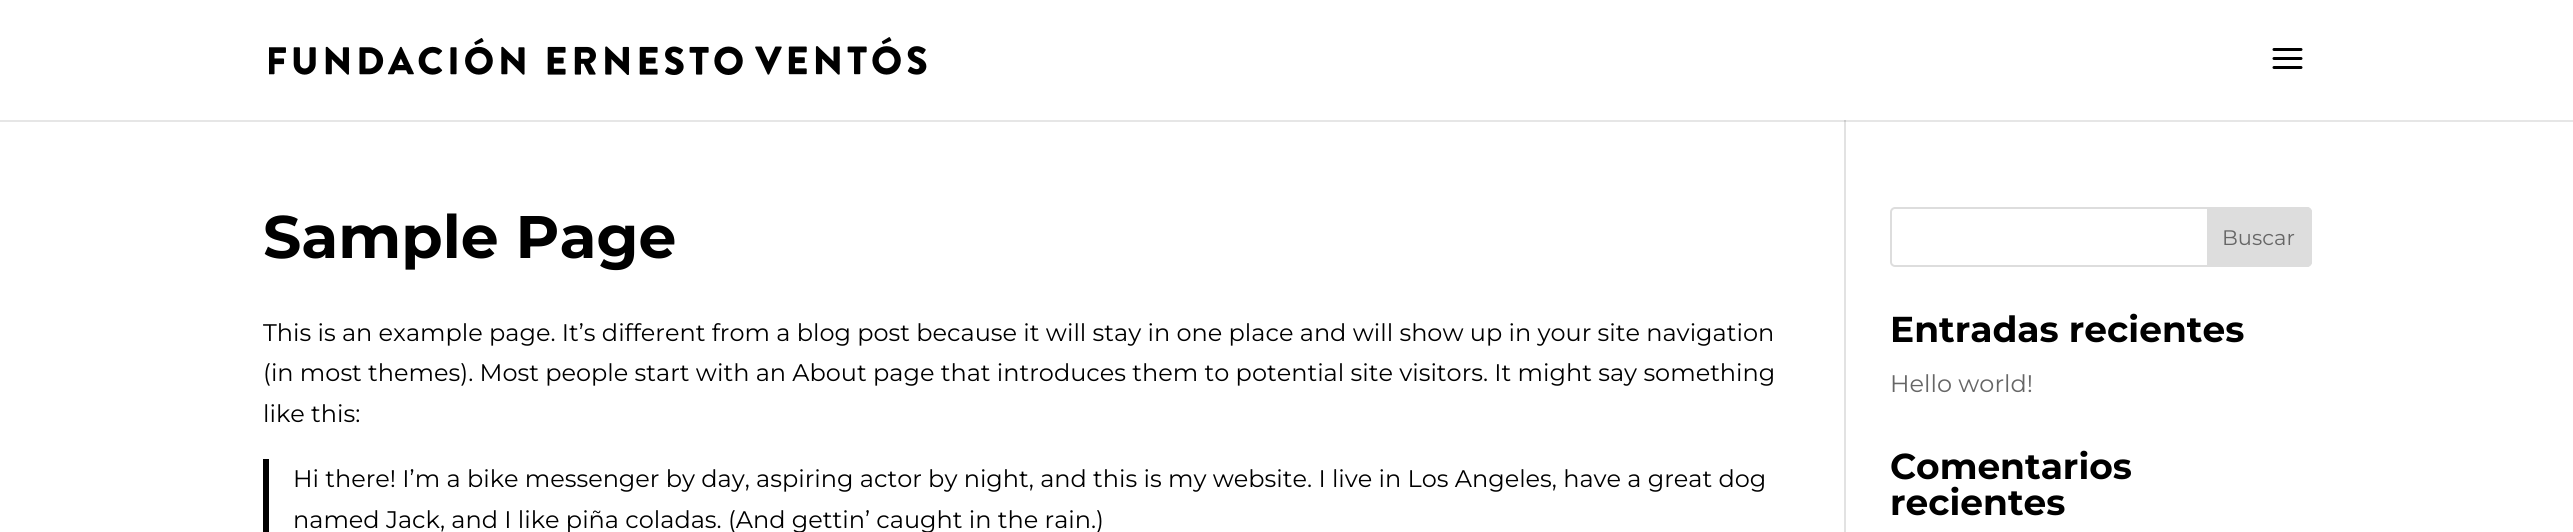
#include <cairo.h>
#include <math.h>
#include <stddef.h>

static cairo_t *c;
static void C(unsigned color){cairo_set_source_rgb(c, (color >> 16) / 255.0, (color >> 8 & 255) / 255.0, (color & 255) / 255.0);}
static void F(const char *family, double size, int italic, int bold){cairo_select_font_face(c, family, italic ? CAIRO_FONT_SLANT_ITALIC : CAIRO_FONT_SLANT_NORMAL,bold ? CAIRO_FONT_WEIGHT_BOLD : CAIRO_FONT_WEIGHT_NORMAL);cairo_set_font_size(c, size);}
static void T(double x, double y, const char *s){cairo_move_to(c, x, y);cairo_show_text(c, s);}
static void R(double x, double y, double w, double h){cairo_rectangle(c, x, y, w, h);cairo_fill(c);}
static void Q(double x, double y, double w, double h, double r){cairo_new_sub_path(c);cairo_arc(c, x + w - r, y + h - r, r, 0, M_PI / 2);cairo_arc(c, x + r, y + h - r, r, M_PI / 2, M_PI);cairo_arc(c, x + r, y + r, r, M_PI, 1.5 * M_PI);cairo_arc(c, x + w - r, y + r, r, 1.5 * M_PI, 2 * M_PI);cairo_close_path(c);}
static void I(const char *path, double x, double y, double w, double h){cairo_surface_t *image = cairo_image_surface_create_from_png(path);cairo_save(c);cairo_set_source_surface(c, image, x, y);cairo_rectangle(c, x, y, w, h);cairo_fill(c);cairo_restore(c);cairo_surface_destroy(image);}
int main(void) {
cairo_surface_t *surface = cairo_image_surface_create(CAIRO_FORMAT_RGB24, 2573, 532);
c = cairo_create(surface);
cairo_font_options_t *options = cairo_font_options_create();
cairo_font_options_set_hint_metrics(options, CAIRO_HINT_METRICS_OFF);
cairo_font_options_set_hint_style(options, CAIRO_HINT_STYLE_NONE);
cairo_set_font_options(c, options);
cairo_set_miter_limit(c, 4);
C(0xffffff);
cairo_paint(c);
C(0xe6e6e6);
R(0,120,2573,2);
I("1.png",269,37,658,38);
I("2.png",2272,48,31,21);
C(0xe2e2e2);
R(1844,120,2,412);
C(0xcbcbcb);
R(1844,120,2,2);
F("Montserrat Thin",60,0,0);
C(0x000000);
T(263,258,"Sample Page");
F("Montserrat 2 Thin",24,0,0);
T(263,341,"This is an example page. It’s different from a blog post because it will stay in one place and will show up in your site navigation");
T(263,381,"(in most themes). Most people start with an About page that introduces them to potential site visitors. It might say something");
T(263,422,"like this:");
R(263,459,6,73);
T(293,487,"Hi there! I’m a bike messenger by day, aspiring actor by night, and this is my website. I live in Los Angeles, have a great dog");
T(293,528,"named Jack, and I like piña coladas. (And gettin’ caught in the rain.)");
Q(1891,208,420,58,4);
C(0xdddddd);
cairo_stroke(c);
cairo_new_path(c);
cairo_move_to(c,2208,208);
cairo_line_to(c,2307,208);
cairo_curve_to(c,2309,208,2311,210,2311,212);
cairo_line_to(c,2311,262);
cairo_curve_to(c,2311,264,2309,266,2307,266);
cairo_line_to(c,2208,266);
cairo_close_path(c);
cairo_fill_preserve(c);
cairo_stroke(c);
F("Montserrat 2 Thin",21,0,0);
C(0x666666);
T(2222,245,"Buscar");
F("Montserrat Thin",36,0,0);
C(0x000000);
T(1890,342,"Entradas recientes");
F("Montserrat 2 Thin",24,0,0);
C(0x666666);
T(1890,392,"Hello world!");
F("Montserrat Thin",36,0,0);
C(0x000000);
T(1890,479,"Comentarios");
T(1890,515,"recientes");
cairo_surface_write_to_png(surface, "o.png");
cairo_font_options_destroy(options);
cairo_destroy(c);
cairo_surface_destroy(surface);
return 0;
}
